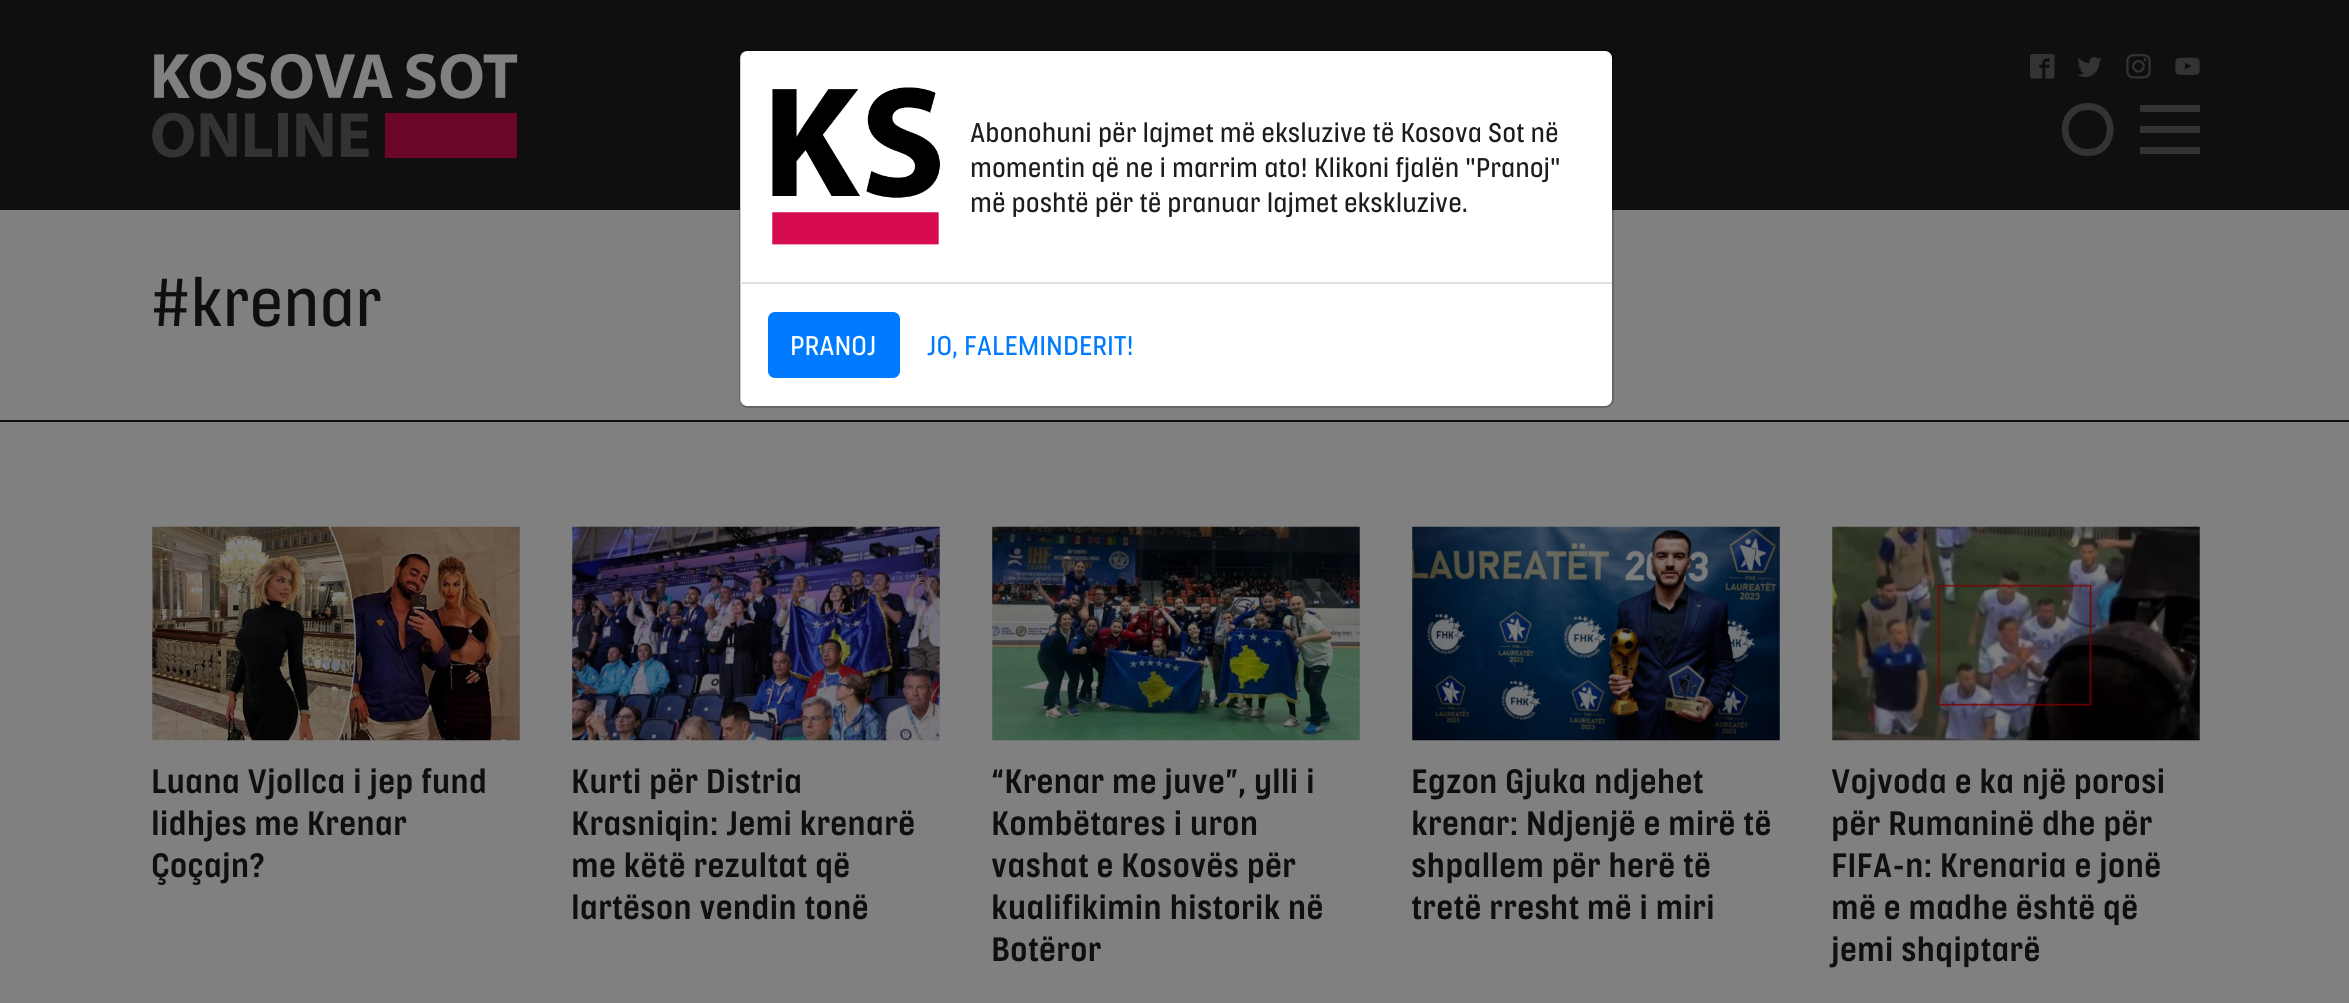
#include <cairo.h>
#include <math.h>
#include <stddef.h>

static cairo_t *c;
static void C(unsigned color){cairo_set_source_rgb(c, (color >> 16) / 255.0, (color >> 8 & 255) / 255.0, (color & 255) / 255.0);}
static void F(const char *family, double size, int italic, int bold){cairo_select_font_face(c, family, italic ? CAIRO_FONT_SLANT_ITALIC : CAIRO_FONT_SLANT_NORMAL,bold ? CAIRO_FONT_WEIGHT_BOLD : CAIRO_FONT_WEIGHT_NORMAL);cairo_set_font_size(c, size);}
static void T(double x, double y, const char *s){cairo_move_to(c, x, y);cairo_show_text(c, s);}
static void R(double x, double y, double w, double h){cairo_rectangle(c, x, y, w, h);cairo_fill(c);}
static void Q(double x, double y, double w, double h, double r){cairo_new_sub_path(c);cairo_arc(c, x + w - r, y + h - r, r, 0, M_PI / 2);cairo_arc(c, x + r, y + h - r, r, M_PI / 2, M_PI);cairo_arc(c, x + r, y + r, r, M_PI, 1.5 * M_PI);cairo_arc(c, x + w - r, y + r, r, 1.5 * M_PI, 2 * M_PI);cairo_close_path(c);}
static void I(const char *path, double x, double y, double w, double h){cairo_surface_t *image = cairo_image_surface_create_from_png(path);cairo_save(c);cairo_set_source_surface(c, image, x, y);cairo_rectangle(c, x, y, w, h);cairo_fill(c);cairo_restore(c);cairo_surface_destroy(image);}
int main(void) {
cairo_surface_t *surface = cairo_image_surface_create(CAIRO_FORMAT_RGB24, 2349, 1003);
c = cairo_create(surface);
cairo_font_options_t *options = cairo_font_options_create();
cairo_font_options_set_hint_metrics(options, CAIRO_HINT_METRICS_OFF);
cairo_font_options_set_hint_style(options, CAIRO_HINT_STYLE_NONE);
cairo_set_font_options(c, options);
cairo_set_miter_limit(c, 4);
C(0x808080);
cairo_paint(c);
C(0x0f0f0e);
R(0,0,2349,210);
I("1.png",152,53,366,105);
I("2.png",2030,54,25,25);
I("3.png",2077,57,25,20);
I("4.png",2126,54,25,25);
I("5.png",2175,57,25,18);
C(0x333333);
cairo_new_path(c);
cairo_move_to(c,2088,110);
cairo_curve_to(c,2113,110,2113,149,2088,149);
cairo_curve_to(c,2062,149,2062,110,2088,110);
cairo_close_path(c);
cairo_move_to(c,2088,103);
cairo_curve_to(c,2053,103,2053,156,2088,156);
cairo_curve_to(c,2122,156,2122,103,2088,103);
cairo_close_path(c);
cairo_fill(c);
R(2140,126,60,7);
R(2140,105,60,7);
R(2140,147,60,7);
C(0xffffff);
Q(740,51,872,355,7);
cairo_fill(c);
Q(740,50,873,357,8);
cairo_set_source_rgba(c,0,0,0,0.2);
cairo_stroke(c);
I("6.png",772,87,168,158);
F("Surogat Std",28,0,0);
C(0x1d1d1b);
T(970,142,"Abonohuni për lajmet më eksluzive të Kosova Sot në");
T(970,177,"momentin që ne i marrim ato! Klikoni fjalën \"Pranoj\"");
T(970,212,"më poshtë për të pranuar lajmet ekskluzive.");
C(0xdee2e6);
R(740,282,872,2);
C(0x007bff);
Q(769,313,130,64,6);
cairo_fill_preserve(c);
cairo_stroke(c);
C(0xffffff);
T(790,355,"PRANOJ");
C(0x007bff);
T(927,355,"JO, FALEMINDERIT!");
C(0x0f0f0e);
R(0,420,2349,2);
F("Surogat Std",70,0,0);
T(151,326,"#krenar");
I("7.png",152,526,368,215);
F("Surogat Std Medium",35,0,0);
T(151,793,"Luana Vjollca i jep fund");
T(151,835,"lidhjes me Krenar");
T(151,877,"Çoçajn?");
I("8.png",572,526,368,215);
T(571,793,"Kurti për Distria");
T(571,835,"Krasniqin: Jemi krenarë");
T(571,877,"me këtë rezultat që");
T(571,919,"lartëson vendin tonë");
I("9.png",992,526,368,215);
T(991,793,"“Krenar me juve”, ylli i");
T(991,835,"Kombëtares i uron");
T(991,877,"vashat e Kosovës për");
T(991,919,"kualifikimin historik në");
T(991,961,"Botëror");
I("10.png",1412,526,368,215);
T(1411,793,"Egzon Gjuka ndjehet");
T(1411,835,"krenar: Ndjenjë e mirë të");
T(1411,877,"shpallem për herë të");
T(1411,919,"tretë rresht më i miri");
I("11.png",1832,526,368,215);
T(1831,793,"Vojvoda e ka një porosi");
T(1831,835,"për Rumaninë dhe për");
T(1831,877,"FIFA-n: Krenaria e jonë");
T(1831,919,"më e madhe është që");
T(1831,961,"jemi shqiptarë");
cairo_surface_write_to_png(surface, "o.png");
cairo_font_options_destroy(options);
cairo_destroy(c);
cairo_surface_destroy(surface);
return 0;
}
